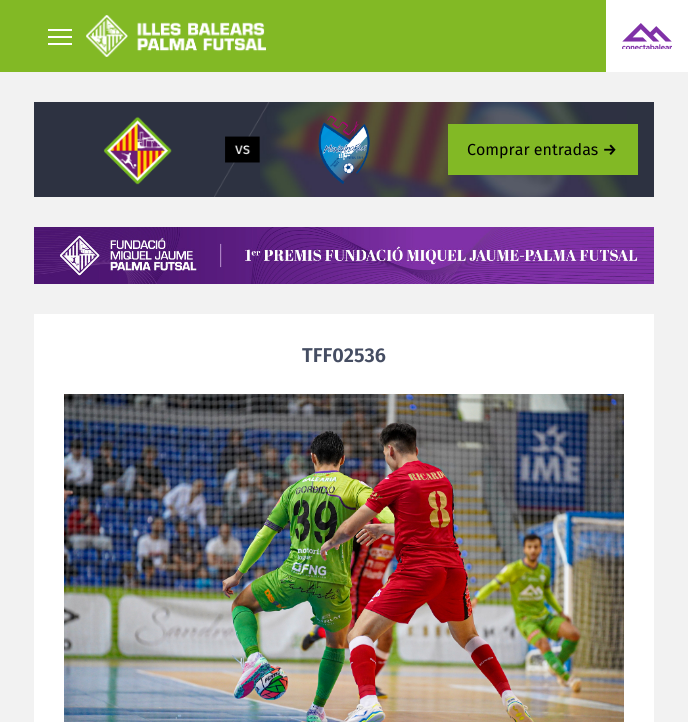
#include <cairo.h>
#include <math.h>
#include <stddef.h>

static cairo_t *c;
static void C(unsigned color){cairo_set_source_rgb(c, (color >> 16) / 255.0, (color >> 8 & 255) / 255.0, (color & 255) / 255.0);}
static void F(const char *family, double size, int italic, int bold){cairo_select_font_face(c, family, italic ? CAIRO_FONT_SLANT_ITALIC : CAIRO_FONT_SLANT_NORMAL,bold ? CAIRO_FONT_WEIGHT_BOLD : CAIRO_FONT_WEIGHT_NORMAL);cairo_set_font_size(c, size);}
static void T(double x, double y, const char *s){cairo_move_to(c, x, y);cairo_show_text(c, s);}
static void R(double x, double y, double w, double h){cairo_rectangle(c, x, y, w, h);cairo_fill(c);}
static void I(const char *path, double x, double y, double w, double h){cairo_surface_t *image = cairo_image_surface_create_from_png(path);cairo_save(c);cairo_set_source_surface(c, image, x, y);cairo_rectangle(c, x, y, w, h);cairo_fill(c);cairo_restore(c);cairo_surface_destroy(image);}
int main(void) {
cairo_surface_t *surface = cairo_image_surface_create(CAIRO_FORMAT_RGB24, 688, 722);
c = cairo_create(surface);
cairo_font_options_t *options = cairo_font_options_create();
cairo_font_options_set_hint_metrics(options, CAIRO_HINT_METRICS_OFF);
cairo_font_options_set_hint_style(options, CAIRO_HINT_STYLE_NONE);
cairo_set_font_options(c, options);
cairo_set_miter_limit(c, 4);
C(0xf2f2f2);
cairo_paint(c);
C(0x82b925);
R(0,0,606,72);
I("1.png",48,29,24,16);
I("2.png",86,15,180,42);
C(0xffffff);
R(606,0,82,72);
I("3.png",622,23,50,26);
C(0x2d3241);
R(34,102,620,95);
I("4.png",260,102,367,95);
I("5.png",214,102,56,95);
I("6.png",103,116,69,69);
I("7.png",318,115,52,69);
C(0x82b925);
R(448,124,190,51);
F("Fira Sans",16,0,0);
C(0x000000);
T(467,155,"Comprar entradas");
I("8.png",604,144,12,11);
I("9.png",34,227,620,57);
C(0xffffff);
R(34,314,620,408);
F("Fira Sans SemiBold",20,0,0);
C(0x454d62);
T(302,362,"TFF02536");
I("10.png",64,394,560,328);
cairo_surface_write_to_png(surface, "o.png");
cairo_font_options_destroy(options);
cairo_destroy(c);
cairo_surface_destroy(surface);
return 0;
}
